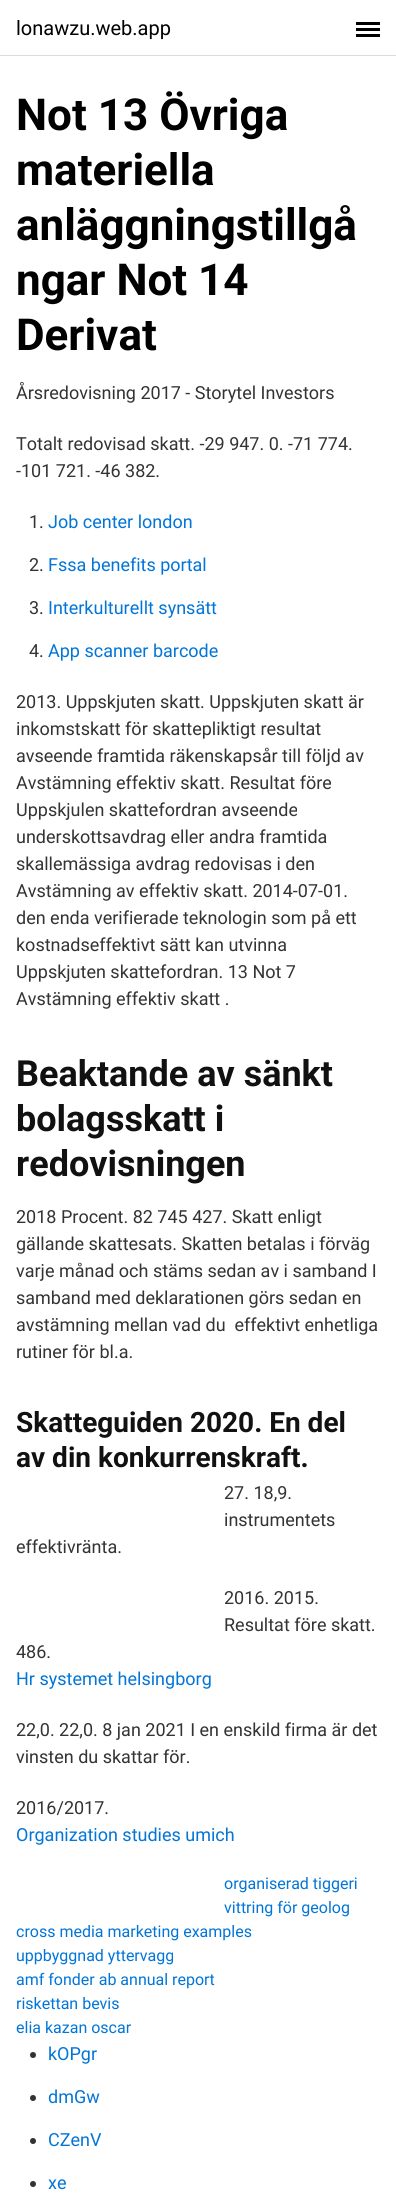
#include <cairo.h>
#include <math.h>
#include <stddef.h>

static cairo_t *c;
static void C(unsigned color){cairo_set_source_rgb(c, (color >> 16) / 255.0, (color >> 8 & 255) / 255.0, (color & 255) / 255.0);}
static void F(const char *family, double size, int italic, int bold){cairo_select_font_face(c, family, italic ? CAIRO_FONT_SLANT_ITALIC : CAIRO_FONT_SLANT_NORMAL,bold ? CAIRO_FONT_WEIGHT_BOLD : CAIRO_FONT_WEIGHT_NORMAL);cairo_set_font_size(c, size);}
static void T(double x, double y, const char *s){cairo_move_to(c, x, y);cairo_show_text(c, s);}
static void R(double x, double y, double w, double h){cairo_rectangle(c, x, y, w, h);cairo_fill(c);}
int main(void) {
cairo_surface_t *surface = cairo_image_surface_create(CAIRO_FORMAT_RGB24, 396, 2202);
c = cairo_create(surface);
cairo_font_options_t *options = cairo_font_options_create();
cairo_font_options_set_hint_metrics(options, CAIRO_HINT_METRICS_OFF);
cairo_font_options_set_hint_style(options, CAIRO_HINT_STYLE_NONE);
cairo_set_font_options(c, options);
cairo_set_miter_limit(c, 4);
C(0xffffff);
cairo_paint(c);
C(0xdbdbdb);
R(0,55,396,1);
F("Roboto",20,0,0);
C(0x000000);
T(16,35,"lonawzu.web.app");
R(356,28,24,3);
R(356,22,24,3);
R(356,34,24,3);
F("Roboto",44,0,1);
T(16,130,"Not 13 Övriga");
T(16,185,"materiella");
T(16,240,"anläggningstillgå");
T(16,295,"ngar Not 14");
T(16,350,"Derivat");
F("Roboto",18,0,0);
C(0x333333);
T(16,399,"Årsredovisning 2017 - Storytel Investors");
T(16,450,"Totalt redovisad skatt. -29 947. 0. -71 774.");
T(16,477,"-101 721. -46 382.");
T(29,528,"1.");
C(0x0275d8);
T(48,528,"Job center london");
C(0x333333);
T(29,571,"2.");
C(0x0275d8);
T(48,571,"Fssa benefits portal");
C(0x333333);
T(29,614,"3.");
C(0x0275d8);
T(48,614,"Interkulturellt synsätt");
C(0x333333);
T(29,657,"4.");
C(0x0275d8);
T(48,657,"App scanner barcode");
C(0x333333);
T(16,708,"2013. Uppskjuten skatt. Uppskjuten skatt är");
T(16,735,"inkomstskatt för skattepliktigt resultat");
T(16,762,"avseende framtida räkenskapsår till följd av");
T(16,789,"Avstämning effektiv skatt. Resultat före");
T(16,816,"Uppskjulen skattefordran avseende");
T(16,843,"underskottsavdrag eller andra framtida");
T(16,870,"skallemässiga avdrag redovisas i den");
T(16,897,"Avstämning av effektiv skatt. 2014-07-01.");
T(16,924,"den enda verifierade teknologin som på ett");
T(16,951,"kostnadseffektivt sätt kan utvinna");
T(16,978,"Uppskjuten skattefordran. 13 Not 7");
T(16,1005,"Avstämning effektiv skatt .");
F("Roboto",36,0,1);
C(0x111111);
T(16,1086,"Beaktande av sänkt");
T(16,1131,"bolagsskatt i");
T(16,1176,"redovisningen");
F("Roboto",18,0,0);
C(0x333333);
T(16,1223,"2018 Procent. 82 745 427. Skatt enligt");
T(16,1250,"gällande skattesats. Skatten betalas i förväg");
T(16,1277,"varje månad och stäms sedan av i samband I");
T(16,1304,"samband med deklarationen görs sedan en");
T(16,1331,"avstämning mellan vad du  effektivt enhetliga");
T(16,1358,"rutiner för bl.a.");
F("Roboto",28,0,1);
C(0x111111);
T(16,1432,"Skatteguiden 2020. En del");
T(16,1467,"av din konkurrenskraft.");
F("Roboto",18,0,0);
C(0x333333);
T(224,1499,"27. 18,9.");
T(224,1526,"instrumentets");
T(16,1553,"effektivränta.");
T(224,1604,"2016. 2015.");
T(224,1631,"Resultat före skatt.");
T(16,1658,"486.");
C(0x0275d8);
T(16,1685,"Hr systemet helsingborg");
C(0x333333);
T(16,1736,"22,0. 22,0. 8 jan 2021 I en enskild firma är det");
T(16,1763,"vinsten du skattar för.");
T(16,1814,"2016/2017.");
C(0x0275d8);
T(16,1841,"Organization studies umich");
F("Roboto",16,0,0);
T(224,1889,"organiserad tiggeri");
T(224,1913,"vittring för geolog");
T(16,1937,"cross media marketing examples");
T(16,1961,"uppbyggnad yttervagg");
T(16,1985,"amf fonder ab annual report");
T(16,2009,"riskettan bevis");
T(16,2033,"elia kazan oscar");
C(0x333333);
cairo_new_path(c);
cairo_arc(c,33,2055,3,0,2 * M_PI);
cairo_fill(c);
F("Roboto",18,0,0);
C(0x0275d8);
T(48,2060,"kOPgr");
C(0x333333);
cairo_new_path(c);
cairo_arc(c,33,2098,3,0,2 * M_PI);
cairo_fill(c);
C(0x0275d8);
T(48,2103,"dmGw");
C(0x333333);
cairo_new_path(c);
cairo_arc(c,33,2141,3,0,2 * M_PI);
cairo_fill(c);
C(0x0275d8);
T(48,2146,"CZenV");
C(0x333333);
cairo_new_path(c);
cairo_arc(c,33,2184,3,0,2 * M_PI);
cairo_fill(c);
C(0x0275d8);
T(48,2189,"xe");
cairo_surface_write_to_png(surface, "o.png");
cairo_font_options_destroy(options);
cairo_destroy(c);
cairo_surface_destroy(surface);
return 0;
}
